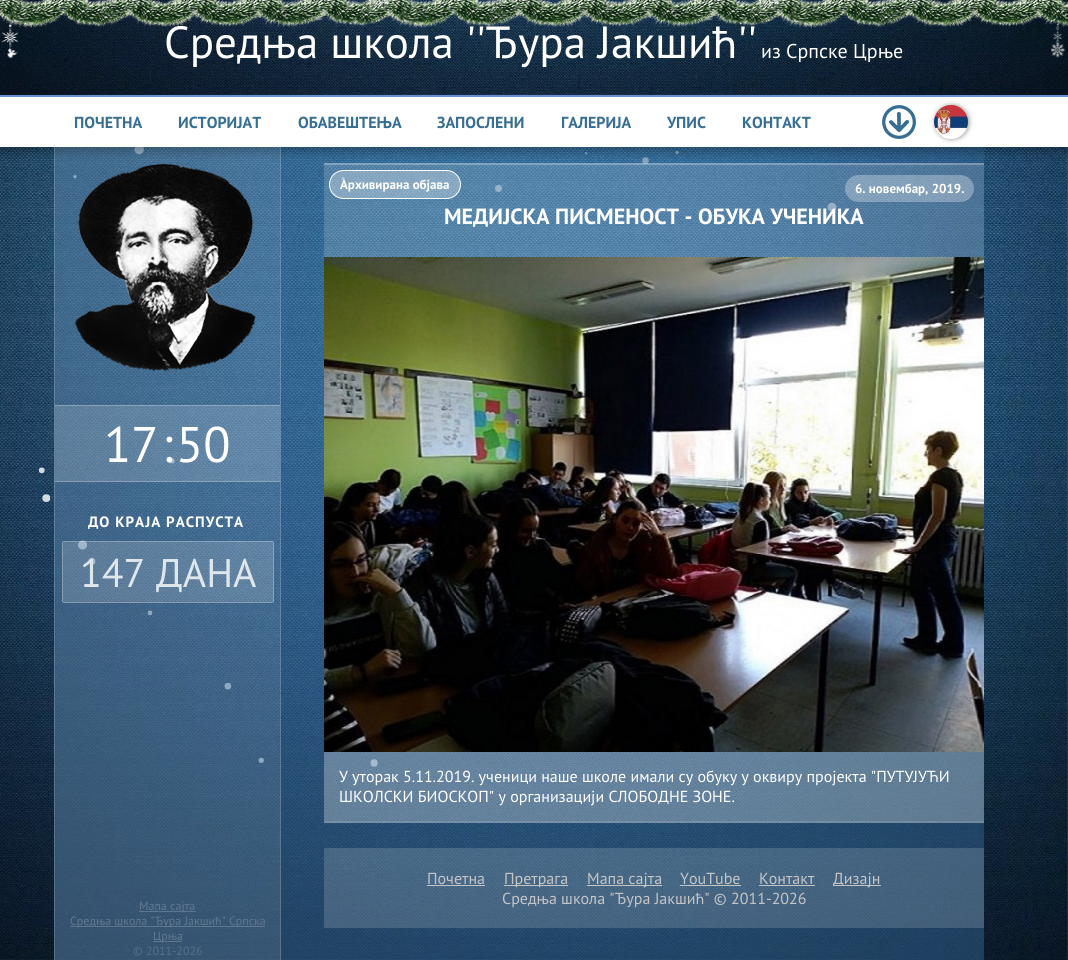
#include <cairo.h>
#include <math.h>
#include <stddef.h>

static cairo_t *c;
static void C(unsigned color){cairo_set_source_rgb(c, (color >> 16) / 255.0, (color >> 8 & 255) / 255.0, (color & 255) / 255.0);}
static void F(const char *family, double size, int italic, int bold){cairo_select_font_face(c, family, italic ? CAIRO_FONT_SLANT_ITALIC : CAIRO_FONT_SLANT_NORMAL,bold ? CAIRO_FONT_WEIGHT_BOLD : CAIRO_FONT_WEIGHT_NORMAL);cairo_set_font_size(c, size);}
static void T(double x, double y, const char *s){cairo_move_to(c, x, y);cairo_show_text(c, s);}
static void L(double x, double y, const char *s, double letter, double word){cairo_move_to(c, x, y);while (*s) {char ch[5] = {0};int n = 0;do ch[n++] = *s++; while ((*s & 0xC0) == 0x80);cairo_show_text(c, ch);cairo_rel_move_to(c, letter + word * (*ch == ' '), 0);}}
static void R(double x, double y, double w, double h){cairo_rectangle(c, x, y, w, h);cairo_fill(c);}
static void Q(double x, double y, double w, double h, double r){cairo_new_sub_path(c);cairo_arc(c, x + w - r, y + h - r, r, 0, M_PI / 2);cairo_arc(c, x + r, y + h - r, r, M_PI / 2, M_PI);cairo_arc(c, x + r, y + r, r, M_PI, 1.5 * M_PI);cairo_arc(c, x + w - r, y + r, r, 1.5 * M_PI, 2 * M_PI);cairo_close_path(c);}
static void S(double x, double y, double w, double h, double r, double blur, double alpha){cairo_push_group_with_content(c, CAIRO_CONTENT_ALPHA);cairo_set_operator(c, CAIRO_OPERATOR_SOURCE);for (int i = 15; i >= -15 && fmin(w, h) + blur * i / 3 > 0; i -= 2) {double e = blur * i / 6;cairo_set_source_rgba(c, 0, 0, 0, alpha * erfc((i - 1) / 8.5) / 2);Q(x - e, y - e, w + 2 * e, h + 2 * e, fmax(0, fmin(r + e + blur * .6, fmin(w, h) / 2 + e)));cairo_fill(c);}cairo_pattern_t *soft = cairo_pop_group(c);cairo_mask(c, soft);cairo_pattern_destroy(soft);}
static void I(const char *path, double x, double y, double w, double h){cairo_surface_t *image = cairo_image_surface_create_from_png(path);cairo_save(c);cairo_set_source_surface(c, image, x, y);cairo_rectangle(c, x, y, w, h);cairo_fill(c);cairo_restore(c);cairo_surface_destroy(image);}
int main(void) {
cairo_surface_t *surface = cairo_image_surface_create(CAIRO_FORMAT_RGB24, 1068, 960);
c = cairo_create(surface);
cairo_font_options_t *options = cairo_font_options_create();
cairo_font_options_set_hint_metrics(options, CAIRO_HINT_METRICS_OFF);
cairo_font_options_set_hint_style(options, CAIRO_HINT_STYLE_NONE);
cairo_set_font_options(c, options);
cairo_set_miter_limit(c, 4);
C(0xffffff);
cairo_paint(c);
I("1.png",0,147,1068,813);
I("8.png",38,147,817,620);
cairo_set_source_rgba(c,0.2,0.396,0.576,0.5);
R(54,147,930,813);
cairo_set_source_rgba(c,1,1,1,0.16);
R(324,163,660,660);
cairo_set_source_rgba(c,1,1,1,0.25);
R(324,163,660,2);
C(0x000000);
S(0,99,1068,52,0,5,.3);
I("2.png",0,0,1068,95);
I("4.png",2,18,16,40);
I("5.png",1051,19,15,39);
I("3.png",0,0,1068,29);
F("PT Sans",45,0,0);
C(0xffffff);
T(164,58,"Средња школа ''Ђура Јакшић''");
F("PT Sans",20,0,0);
T(761,58,"из Српске Црње");
R(0,97,1068,50);
C(0x6890d1);
R(0,95,1068,2);
F("PT Sans",16,0,1);
C(0x366e94);
T(74,128,"ПОЧЕТНА");
T(178,128,"ИСТОРИЈАТ");
T(298,128,"ОБАВЕШТЕЊА");
T(437,128,"ЗАПОСЛЕНИ");
T(561,128,"ГАЛЕРИЈА");
T(667,128,"УПИС");
T(742,128,"КОНТАКТ");
I("6.png",882,105,34,34);
C(0x000000);
S(935,105,34,34,17,2.5,.41);
I("7.png",934,105,34,34);
cairo_set_source_rgba(c,1,1,1,0.1);
R(54,147,227,813);
cairo_set_source_rgba(c,1,1,1,0.17);
R(280,145,1,815);
R(54,145,1,815);
I("9.png",74,164,190,217);
cairo_set_source_rgba(c,1,1,1,0.16);
R(55,405,225,77);
cairo_set_source_rgba(c,1,1,1,0.25);
R(55,405,225,1);
R(55,481,225,1);
F("PT Sans",50,0,0);
C(0xffffff);
T(104,462,"17");
T(162,462,":");
T(176,462,"50");
F("PT Sans",15,0,1);
L(88,527,"ДО КРАЈА РАСПУСТА",1,0);
cairo_set_source_rgba(c,1,1,1,0.16);
Q(62,541,212,62,2);
cairo_fill(c);
Q(62.5,541.5,211,61,1.5);
cairo_set_source_rgba(c,1,1,1,0.25);
cairo_set_line_width(c,1);
cairo_stroke(c);
F("PT Sans",40,0,0);
C(0xdfe6ec);
T(80,587,"147 ДАНA");
cairo_set_source_rgba(c,1,1,1,0.2);
R(139,911,57,1);
F("PT Sans",12,0,0);
C(0x607890);
T(139,910,"Мапа сајта");
cairo_set_source_rgba(c,1,1,1,0.2);
R(70,926,195,1);
C(0x607890);
T(70,925,"Средња школа \"Ђура Јакшић\" Српска");
cairo_set_source_rgba(c,1,1,1,0.2);
R(153,941,29,1);
C(0x607890);
T(153,940,"Црња");
C(0x556e87);
T(133,955,"© 2011-2026");
cairo_set_source_rgba(c,1,1,1,0.25);
R(324,821,660,2);
cairo_set_source_rgba(c,1,1,1,0.3);
Q(329.5,170.5,131,28,14);
cairo_fill_preserve(c);
C(0xffffff);
cairo_stroke(c);
F("PT Sans",13,0,1);
T(340,189,"Архивирана објава");
cairo_set_source_rgba(c,1,1,1,0.3);
Q(845,175,129,27,13.5);
cairo_fill(c);
C(0xffffff);
T(855,193,"6. новембар, 2019.");
F("PT Sans",22,0,1);
T(444,224,"МЕДИЈСКА ПИСМЕНОСТ - ОБУКА УЧЕНИКА");
I("10.png",324,257,660,495);
cairo_set_source_rgba(c,1,1,1,0.15);
R(324,752,660,69);
F("PT Sans",16,0,0);
C(0xffffff);
T(339,782,"У уторак 5.11.2019. ученици наше школе имали су обуку у оквиру пројекта \"ПУТУЈУЋИ");
T(339,802,"ШКОЛСКИ БИОСКОП\" у организацији СЛОБОДНЕ ЗОНЕ.");
cairo_set_source_rgba(c,1,1,1,0.16);
R(324,848,660,80);
C(0xc5c5c5);
T(427,884,"Почетна");
R(427,885,58,1);
R(504,885,64,1);
T(504,884,"Претрага");
R(587,885,75,1);
T(587,884,"Мапа сајта");
T(680,884,"YouTube");
R(680,885,61,1);
T(759,884,"Контакт");
R(759,885,56,1);
R(833,885,48,1);
T(833,884,"Дизајн");
T(502,904,"Средња школа \"Ђура Јакшић\" © 2011-2026");
cairo_surface_write_to_png(surface, "o.png");
cairo_font_options_destroy(options);
cairo_destroy(c);
cairo_surface_destroy(surface);
return 0;
}
